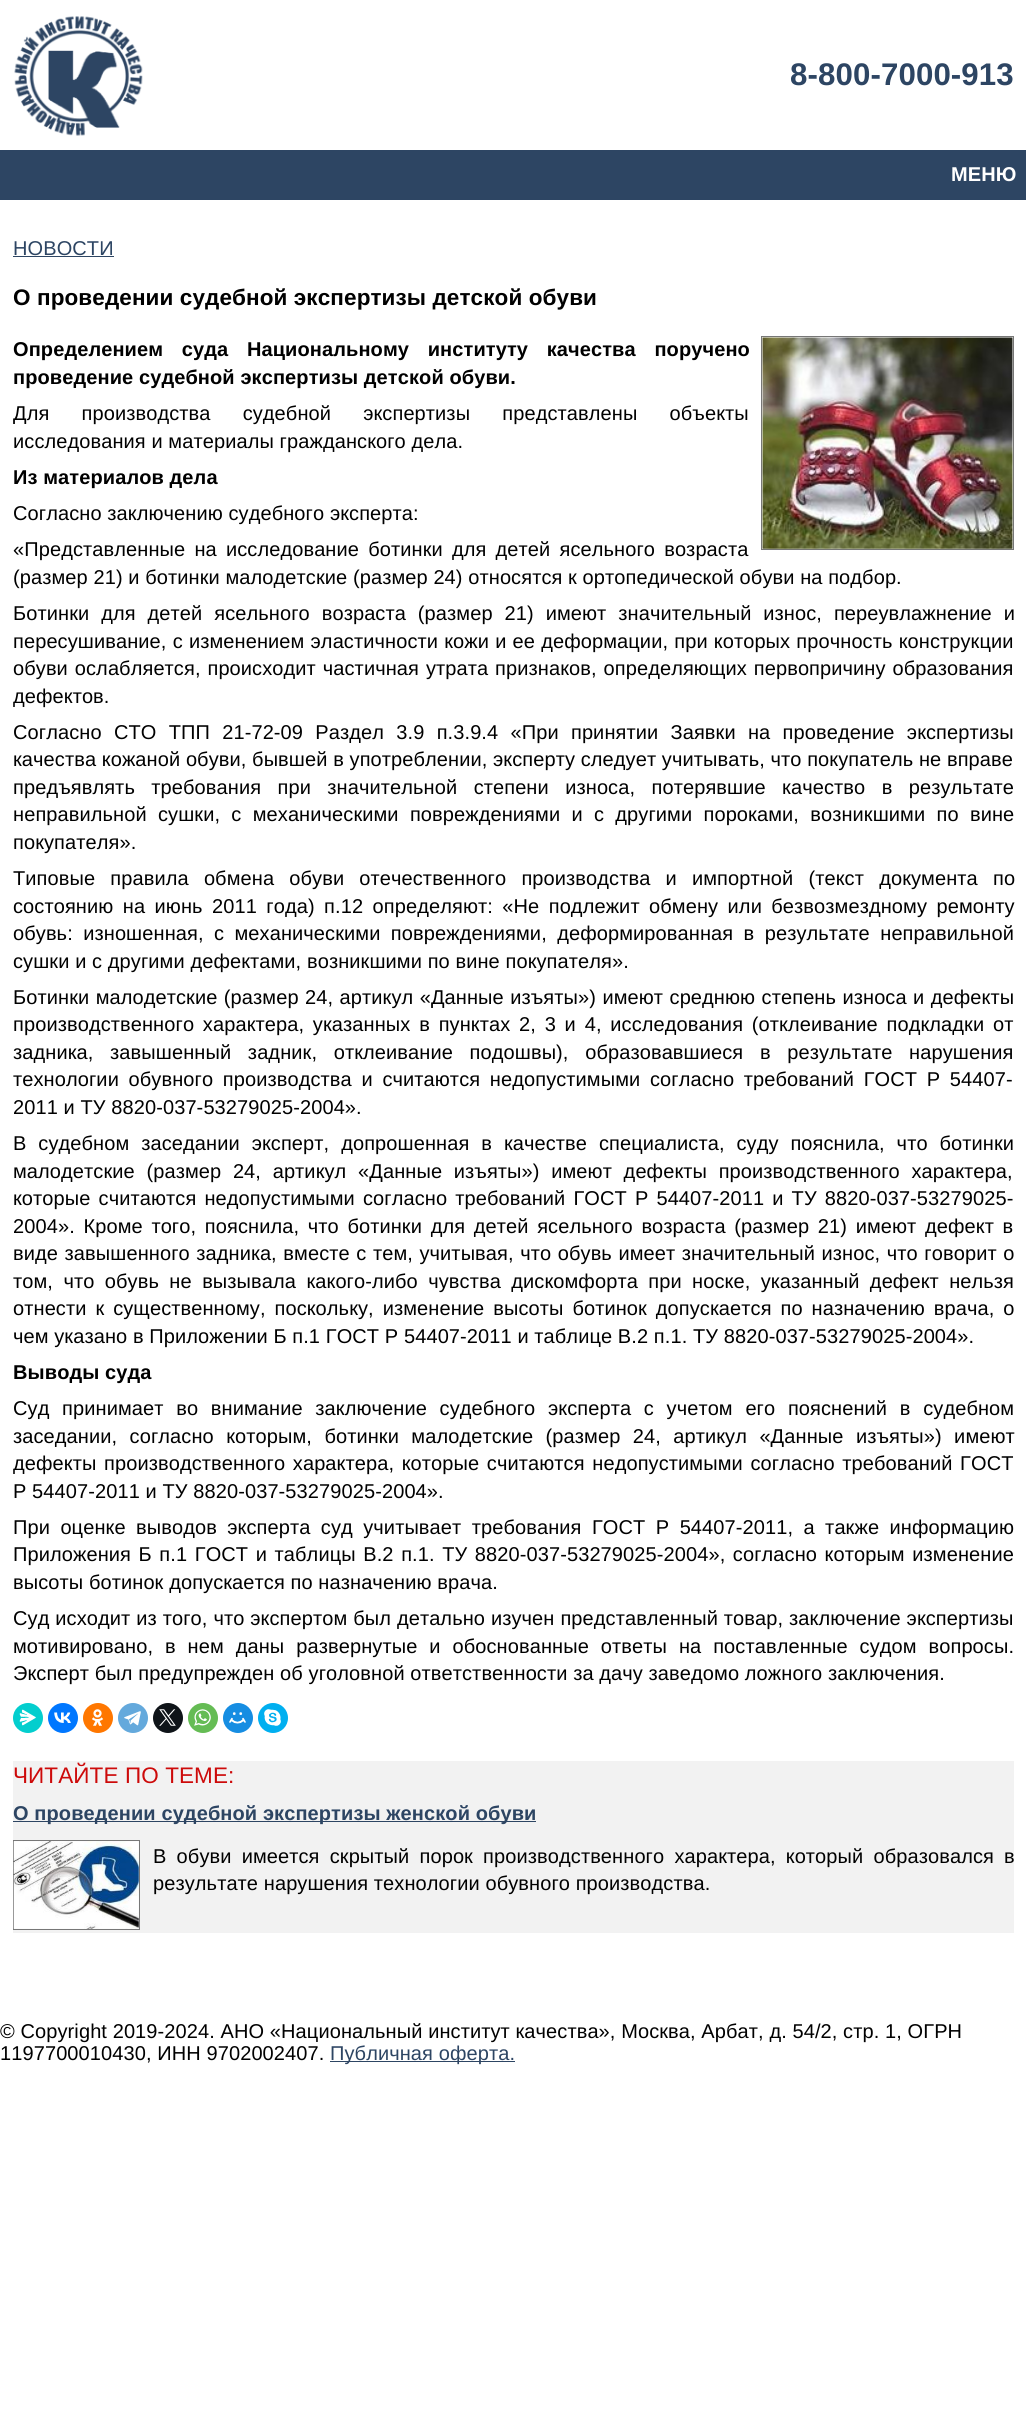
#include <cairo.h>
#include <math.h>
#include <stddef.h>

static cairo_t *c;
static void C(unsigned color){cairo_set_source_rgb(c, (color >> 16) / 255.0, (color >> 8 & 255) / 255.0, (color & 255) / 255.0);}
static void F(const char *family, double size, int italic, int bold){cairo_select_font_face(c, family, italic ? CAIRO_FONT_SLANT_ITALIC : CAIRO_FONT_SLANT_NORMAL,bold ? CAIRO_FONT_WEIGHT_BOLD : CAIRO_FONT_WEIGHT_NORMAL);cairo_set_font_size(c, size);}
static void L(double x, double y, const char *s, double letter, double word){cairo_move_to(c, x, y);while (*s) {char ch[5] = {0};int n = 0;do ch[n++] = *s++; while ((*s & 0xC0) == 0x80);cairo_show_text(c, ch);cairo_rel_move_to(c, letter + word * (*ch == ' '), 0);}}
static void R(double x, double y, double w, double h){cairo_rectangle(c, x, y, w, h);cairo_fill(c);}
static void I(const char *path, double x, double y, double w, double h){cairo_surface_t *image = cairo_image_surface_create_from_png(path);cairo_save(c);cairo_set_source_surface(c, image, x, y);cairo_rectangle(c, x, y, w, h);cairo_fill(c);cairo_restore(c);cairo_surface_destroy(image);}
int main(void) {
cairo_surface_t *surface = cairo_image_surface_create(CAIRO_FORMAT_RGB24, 1026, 2422);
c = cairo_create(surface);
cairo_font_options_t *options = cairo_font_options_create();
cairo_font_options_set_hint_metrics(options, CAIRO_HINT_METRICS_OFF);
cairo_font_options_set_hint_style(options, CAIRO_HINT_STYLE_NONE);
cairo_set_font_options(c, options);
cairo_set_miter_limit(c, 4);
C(0xffffff);
cairo_paint(c);
I("1.png",14,16,129,120);
F("Liberation Sans",31.25,0,1);
C(0x2d4563);
L(790,85,"8-800-7000-913",.1,0);
R(0,150,1026,50);
F("Liberation Sans",20,0,1);
C(0xffffff);
L(951,181,"МЕНЮ",.1,0);
F("Liberation Sans",20,0,0);
C(0x2d4563);
L(13,255,"НОВОСТИ",.1,0);
R(13,256,101,1);
F("Liberation Sans",22.5,0,1);
C(0x000000);
L(13,305,"О проведении судебной экспертизы детской обуви",.1,0);
F("Liberation Sans",20,0,1);
L(13,356,"Определением суда Национальному институту качества поручено",.1,13);
L(13,384,"проведение судебной экспертизы детской обуви.",.1,0);
cairo_rectangle(c,761.5,336.5,252,213);
C(0x777777);
cairo_set_line_width(c,1);
cairo_stroke(c);
I("2.png",762,337,251,212);
F("Liberation Sans",20,0,0);
C(0x000000);
L(13,420,"Для производства судебной экспертизы представлены объекты",.1,26.5);
L(13,448,"исследования и материалы гражданского дела.",.1,0);
F("Liberation Sans",20,0,1);
L(13,484,"Из материалов дела",.1,0);
F("Liberation Sans",20,0,0);
L(13,520,"Согласно заключению судебного эксперта:",.1,0);
L(13,556,"«Представленные на исследование ботинки для детей ясельного возраста",.1,3.5);
L(13,584,"(размер 21) и ботинки малодетские (размер 24) относятся к ортопедической обуви на подбор.",.1,0);
L(13,620,"Ботинки для детей ясельного возраста (размер 21) имеют значительный износ, переувлажнение и",.1,6.25);
L(13,648,"пересушивание, с изменением эластичности кожи и ее деформации, при которых прочность конструкции",.1,.5);
L(13,675,"обуви ослабляется, происходит частичная утрата признаков, определяющих первопричину образования",.1,1.25);
L(13,703,"дефектов.",.1,0);
L(13,739,"Согласно СТО ТПП 21-72-09 Раздел 3.9 п.3.9.4 «При принятии Заявки на проведение экспертизы",.1,6.6);
L(13,766,"качества кожаной обуви, бывшей в употреблении, эксперту следует учитывать, что покупатель не вправе",.1,0);
L(13,794,"предъявлять требования при значительной степени износа, потерявшие качество в результате",.1,10.75);
L(13,821,"неправильной сушки, с механическими повреждениями и с другими пороками, возникшими по вине",.1,5.6);
L(13,849,"покупателя».",.1,0);
L(13,885,"Типовые правила обмена обуви отечественного производства и импортной (текст документа по",.1,9.5);
L(13,913,"состоянию на июнь 2011 года) п.12 определяют: «Не подлежит обмену или безвозмездному ремонту",.1,3.75);
L(13,940,"обувь: изношенная, с механическими повреждениями, деформированная в результате неправильной",.1,4.75);
L(13,968,"сушки и с другими дефектами, возникшими по вине покупателя».",.1,0);
L(13,1004,"Ботинки малодетские (размер 24, артикул «Данные изъяты») имеют среднюю степень износа и дефекты",.1,.75);
L(13,1031,"производственного характера, указанных в пунктах 2, 3 и 4, исследования (отклеивание подкладки от",.1,3.1);
L(13,1059,"задника, завышенный задник, отклеивание подошвы), образовавшиеся в результате нарушения",.1,11);
L(13,1086,"технологии обувного производства и считаются недопустимыми согласно требований ГОСТ Р 54407-",.1,4);
L(13,1114,"2011 и ТУ 8820-037-53279025-2004».",.1,0);
L(13,1150,"В судебном заседании эксперт, допрошенная в качестве специалиста, суду пояснила, что ботинки",.1,6.25);
L(13,1178,"малодетские (размер 24, артикул «Данные изъяты») имеют дефекты производственного характера,",.1,6);
L(13,1205,"которые считаются недопустимыми согласно требований ГОСТ Р 54407-2011 и ТУ 8820-037-53279025-",.1,2.4);
L(13,1233,"2004». Кроме того, пояснила, что ботинки для детей ясельного возраста (размер 21) имеют дефект в",.1,3);
L(13,1260,"виде завышенного задника, вместе с тем, учитывая, что обувь имеет значительный износ, что говорит о",.1,.9);
L(13,1288,"том, что обувь не вызывала какого-либо чувства дискомфорта при носке, указанный дефект нельзя",.1,4.75);
L(13,1315,"отнести к существенному, поскольку, изменение высоты ботинок допускается по назначению врача, о",.1,3.25);
L(13,1343,"чем указано в Приложении Б п.1 ГОСТ Р 54407-2011 и таблице В.2 п.1. ТУ 8820-037-53279025-2004».",.1,0);
F("Liberation Sans",20,0,1);
L(13,1379,"Выводы суда",.1,0);
F("Liberation Sans",20,0,0);
L(13,1415,"Суд принимает во внимание заключение судебного эксперта с учетом его пояснений в судебном",.1,7);
L(13,1443,"заседании, согласно которым, ботинки малодетские (размер 24, артикул «Данные изъяты») имеют",.1,6.75);
L(13,1470,"дефекты производственного характера, которые считаются недопустимыми согласно требований ГОСТ",.1,2);
L(13,1498,"Р 54407-2011 и ТУ 8820-037-53279025-2004».",.1,0);
L(13,1534,"При оценке выводов эксперта суд учитывает требования ГОСТ Р 54407-2011, а также информацию",.1,4.75);
L(13,1561,"Приложения Б п.1 ГОСТ и таблицы В.2 п.1. ТУ 8820-037-53279025-2004», согласно которым изменение",.1,1.9);
L(13,1589,"высоты ботинок допускается по назначению врача.",.1,0);
L(13,1625,"Суд исходит из того, что экспертом был детально изучен представленный товар, заключение экспертизы",.1,.25);
L(13,1653,"мотивировано, в нем даны развернутые и обоснованные ответы на поставленные судом вопросы.",.1,6.25);
L(13,1680,"Эксперт был предупрежден об уголовной ответственности за дачу заведомо ложного заключения.",.1,0);
C(0x03cece);
cairo_new_path(c);
cairo_arc(c,28,1718,15,0,2 * M_PI);
cairo_fill(c);
I("3.png",19,1709,17,17);
C(0x0077ff);
cairo_arc(c,63,1718,15,0,2 * M_PI);
cairo_fill(c);
I("4.png",54,1712,17,11);
C(0xff7700);
cairo_arc(c,98,1718,15,0,2 * M_PI);
cairo_fill(c);
I("5.png",92,1709,12,17);
C(0x64a9dc);
cairo_arc(c,133,1718,15,0,2 * M_PI);
cairo_fill(c);
I("6.png",124,1711,17,15);
C(0x0f1419);
cairo_arc(c,168,1718,15,0,2 * M_PI);
cairo_fill(c);
I("7.png",159,1709,17,17);
C(0x65bc54);
cairo_arc(c,203,1718,15,0,2 * M_PI);
cairo_fill(c);
I("8.png",194,1709,17,17);
C(0x168de2);
cairo_arc(c,238,1718,15,0,2 * M_PI);
cairo_fill(c);
I("9.png",229,1712,17,12);
C(0x00aff0);
cairo_arc(c,273,1718,15,0,2 * M_PI);
cairo_fill(c);
I("10.png",264,1709,17,17);
C(0xf2f2f2);
R(13,1761,1001,172);
F("Liberation Sans",22.5,0,0);
C(0xcd0a0a);
L(13,1783,"ЧИТАЙТЕ ПО ТЕМЕ:",.1,0);
C(0x2d4563);
R(13,1821,523,1);
F("Liberation Sans",20,0,1);
L(13,1820,"О проведении судебной экспертизы женской обуви",.1,0);
cairo_rectangle(c,13.5,1840.5,126,89);
C(0x777777);
cairo_stroke(c);
I("11.png",13,1841,126,88);
F("Liberation Sans",20,0,0);
C(0x000000);
L(153,1863,"В обуви имеется скрытый порок производственного характера, который образовался в",.1,4.5);
L(153,1890,"результате нарушения технологии обувного производства.",.1,0);
L(0,2038,"© Copyright 2019-2024. АНО «Национальный институт качества», Москва, Арбат, д. 54/2, стр. 1, ОГРН",.1,0);
L(0,2060,"1197700010430, ИНН 9702002407.",.1,0);
C(0x2d4563);
R(330,2061,185,1);
L(330,2060,"Публичная оферта.",.1,0);
cairo_surface_write_to_png(surface, "o.png");
cairo_font_options_destroy(options);
cairo_destroy(c);
cairo_surface_destroy(surface);
return 0;
}
